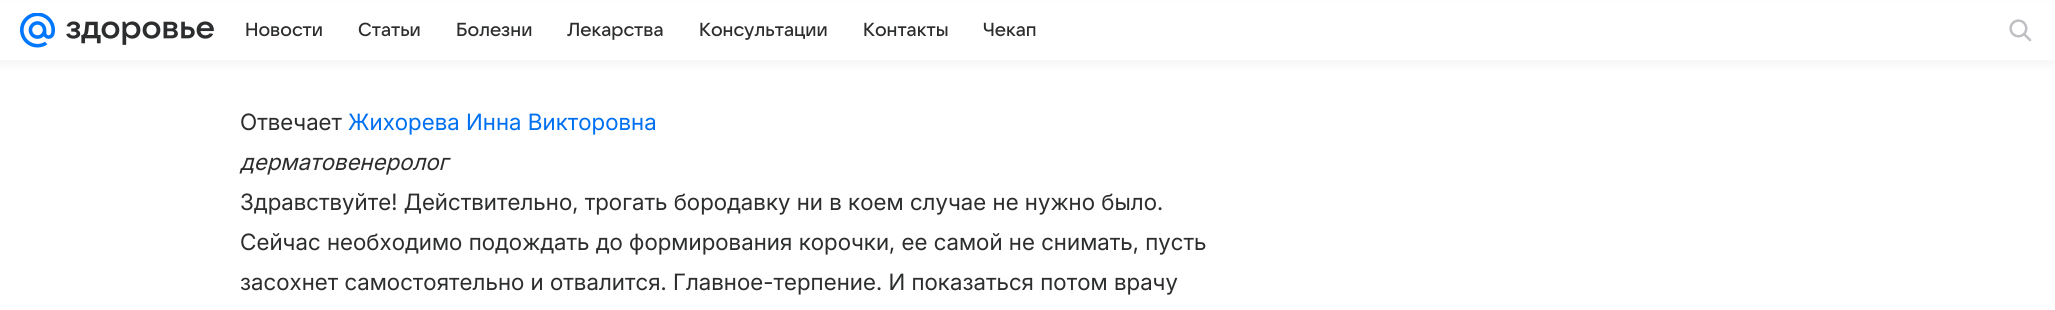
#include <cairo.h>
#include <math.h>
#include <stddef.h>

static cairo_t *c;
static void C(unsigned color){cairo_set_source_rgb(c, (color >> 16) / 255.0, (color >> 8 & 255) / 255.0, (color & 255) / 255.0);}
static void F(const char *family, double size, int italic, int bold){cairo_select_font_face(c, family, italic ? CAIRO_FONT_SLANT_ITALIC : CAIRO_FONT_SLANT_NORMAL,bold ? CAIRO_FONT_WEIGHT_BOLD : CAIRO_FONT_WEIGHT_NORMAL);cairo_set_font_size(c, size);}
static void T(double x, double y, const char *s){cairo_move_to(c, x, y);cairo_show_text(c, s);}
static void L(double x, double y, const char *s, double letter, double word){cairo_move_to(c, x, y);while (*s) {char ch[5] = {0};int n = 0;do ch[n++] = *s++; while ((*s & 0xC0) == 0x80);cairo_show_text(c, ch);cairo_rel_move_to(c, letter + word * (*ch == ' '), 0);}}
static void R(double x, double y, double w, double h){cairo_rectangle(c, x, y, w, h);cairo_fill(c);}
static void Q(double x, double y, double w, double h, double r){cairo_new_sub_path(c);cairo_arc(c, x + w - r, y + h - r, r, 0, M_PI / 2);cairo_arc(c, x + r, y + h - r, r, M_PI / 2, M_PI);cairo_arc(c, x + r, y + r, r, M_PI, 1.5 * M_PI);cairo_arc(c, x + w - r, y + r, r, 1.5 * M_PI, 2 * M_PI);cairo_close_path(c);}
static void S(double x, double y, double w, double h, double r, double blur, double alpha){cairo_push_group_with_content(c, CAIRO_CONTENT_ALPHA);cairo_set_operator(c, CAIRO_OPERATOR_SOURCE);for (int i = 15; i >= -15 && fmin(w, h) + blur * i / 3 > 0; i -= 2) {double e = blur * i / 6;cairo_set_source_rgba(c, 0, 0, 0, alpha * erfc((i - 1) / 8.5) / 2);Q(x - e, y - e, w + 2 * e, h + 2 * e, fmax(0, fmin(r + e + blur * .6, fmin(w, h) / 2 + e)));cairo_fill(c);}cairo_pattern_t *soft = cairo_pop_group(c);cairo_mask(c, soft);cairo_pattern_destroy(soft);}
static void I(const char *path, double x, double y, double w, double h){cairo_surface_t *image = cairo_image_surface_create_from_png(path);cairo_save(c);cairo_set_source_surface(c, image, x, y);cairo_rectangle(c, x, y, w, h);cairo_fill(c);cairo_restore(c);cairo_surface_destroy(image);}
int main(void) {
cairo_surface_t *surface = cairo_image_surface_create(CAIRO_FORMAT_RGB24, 2055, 310);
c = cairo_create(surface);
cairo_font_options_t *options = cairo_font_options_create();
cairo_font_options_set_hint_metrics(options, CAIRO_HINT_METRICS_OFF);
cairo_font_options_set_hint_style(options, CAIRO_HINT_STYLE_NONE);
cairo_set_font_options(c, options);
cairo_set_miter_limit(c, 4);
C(0xffffff);
cairo_paint(c);
C(0x000000);
S(0,5,2055,60,0,5,.04);
C(0xffffff);
R(0,2,2055,58);
I("1.png",20,13,35,35);
I("2.png",66,21,148,24);
F("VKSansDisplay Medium",18.75,0,0);
C(0x2c2d2e);
T(245,36,"Новости");
T(358,36,"Статьи");
T(456,36,"Болезни");
T(567,36,"Лекарства");
T(699,36,"Консультации");
T(863,36,"Контакты");
T(983,36,"Чекап");
I("3.png",2009,19,23,23);
F("Inter",22.5,0,0);
L(240,130,"Отвечает",.07,0);
C(0x0070f0);
L(348,130,"Жихорева Инна Викторовна",.07,0);
F("Inter",22.5,1,0);
C(0x2c2d2e);
L(240,170,"дерматовенеролог",.07,0);
F("Inter",22.5,0,0);
L(240,210,"Здравствуйте! Действительно, трогать бородавку ни в коем случае не нужно было.",.07,0);
L(240,250,"Сейчас необходимо подождать до формирования корочки, ее самой не снимать, пусть",.07,0);
L(240,290,"засохнет самостоятельно и отвалится. Главное-терпение. И показаться потом врачу",.07,0);
cairo_surface_write_to_png(surface, "o.png");
cairo_font_options_destroy(options);
cairo_destroy(c);
cairo_surface_destroy(surface);
return 0;
}
